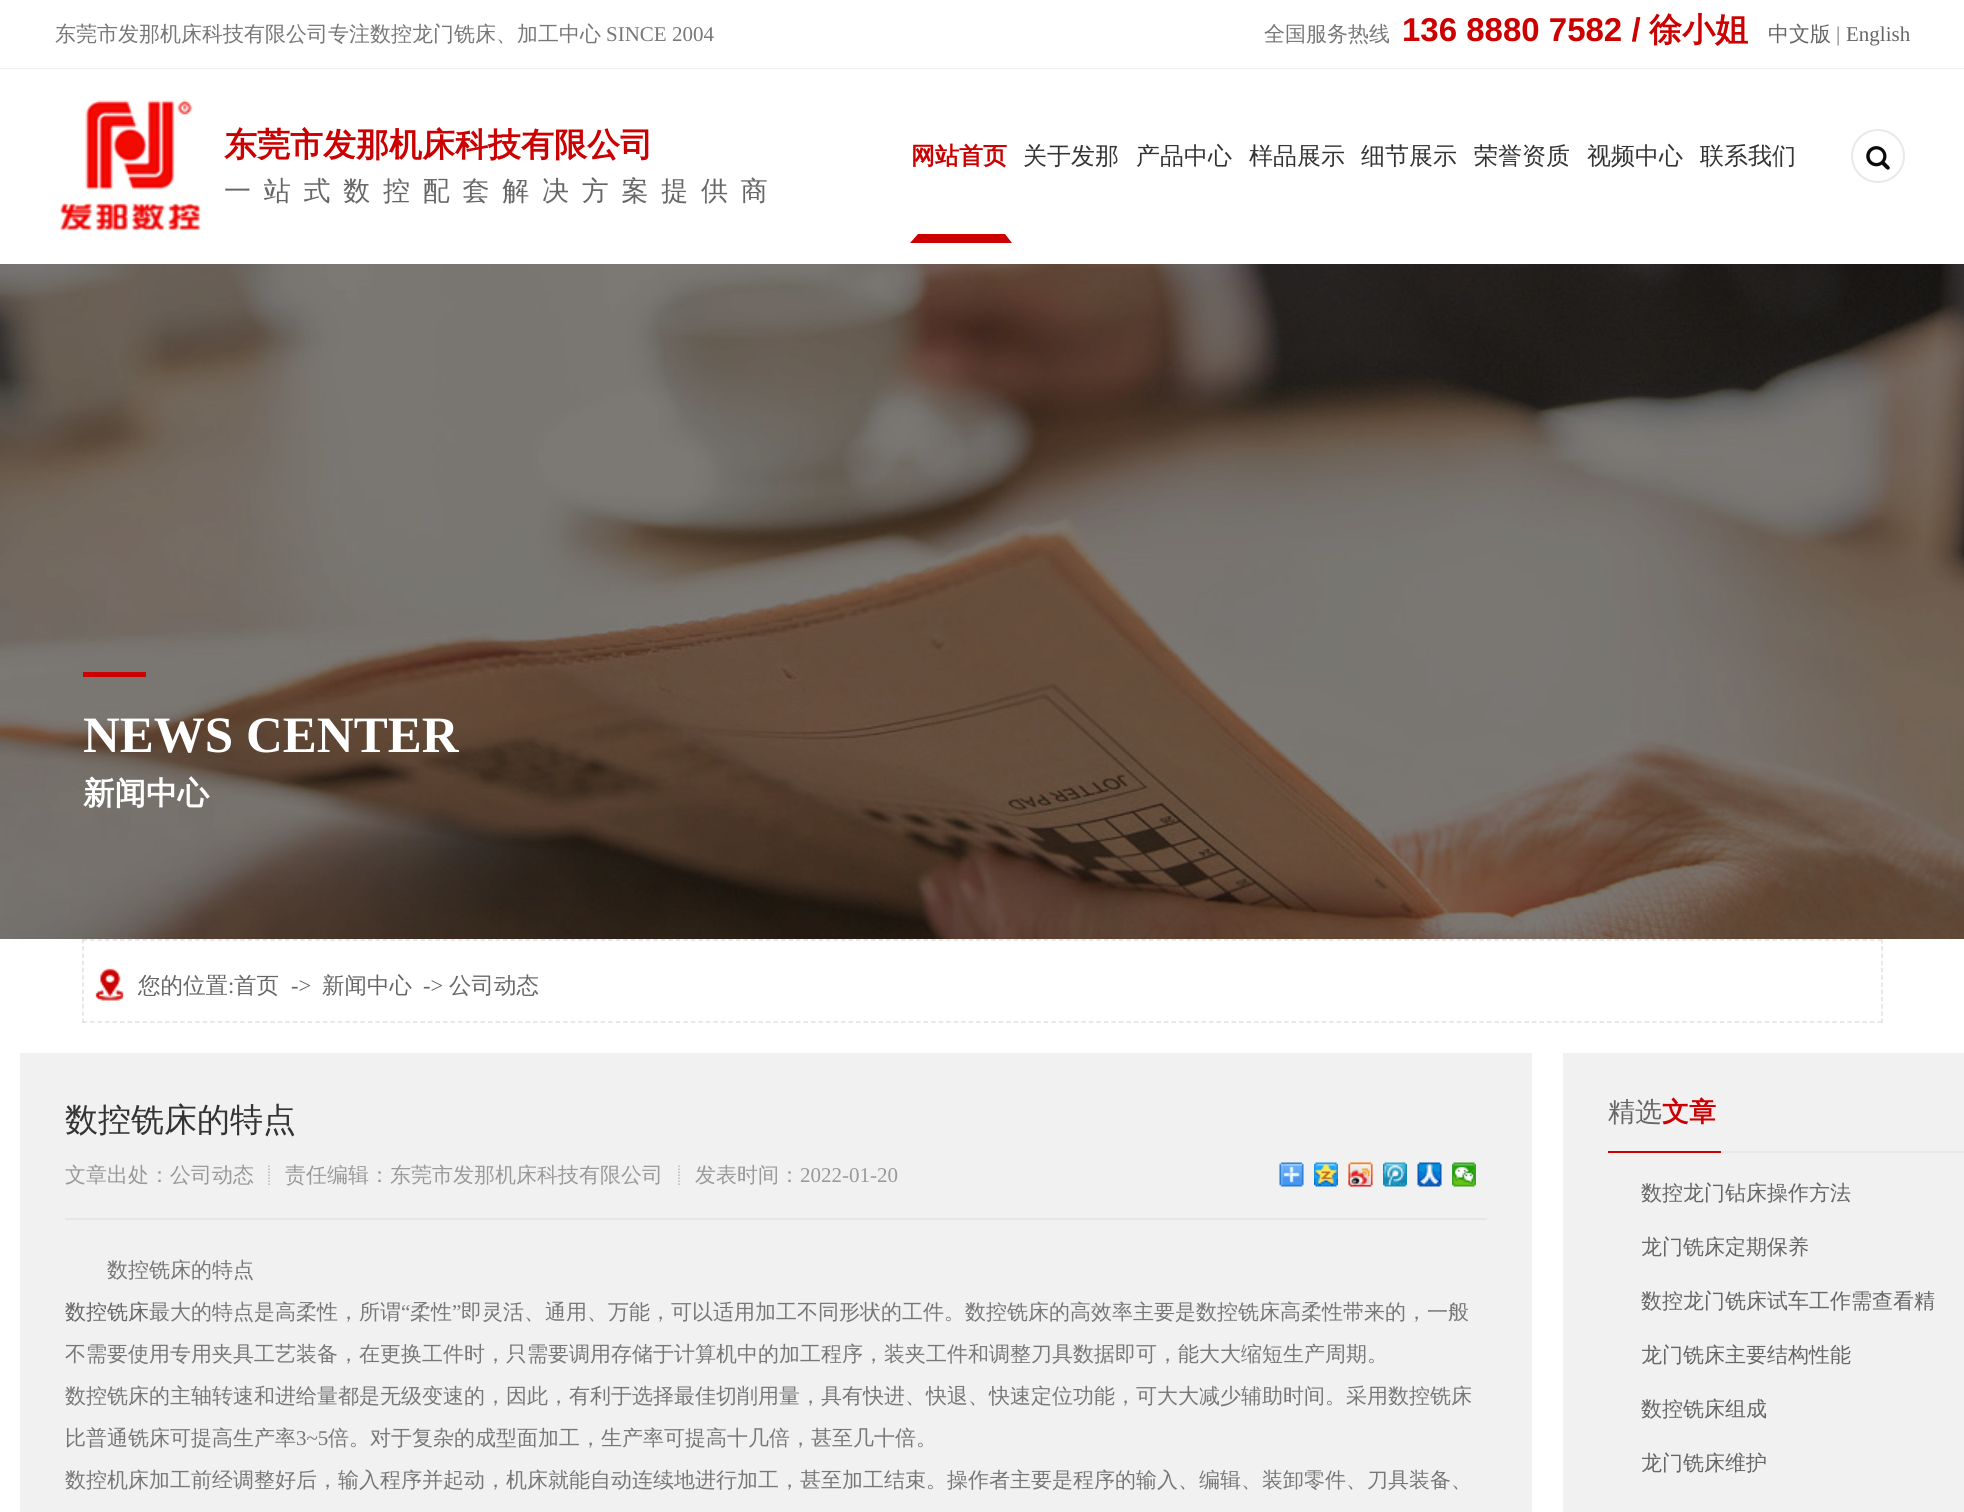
#include <cairo.h>
#include <math.h>
#include <stddef.h>

static cairo_t *c;
static void C(unsigned color){cairo_set_source_rgb(c, (color >> 16) / 255.0, (color >> 8 & 255) / 255.0, (color & 255) / 255.0);}
static void F(const char *family, double size, int italic, int bold){cairo_select_font_face(c, family, italic ? CAIRO_FONT_SLANT_ITALIC : CAIRO_FONT_SLANT_NORMAL,bold ? CAIRO_FONT_WEIGHT_BOLD : CAIRO_FONT_WEIGHT_NORMAL);cairo_set_font_size(c, size);}
static void T(double x, double y, const char *s){cairo_move_to(c, x, y);cairo_show_text(c, s);}
static void L(double x, double y, const char *s, double letter, double word){cairo_move_to(c, x, y);while (*s) {char ch[5] = {0};int n = 0;do ch[n++] = *s++; while ((*s & 0xC0) == 0x80);cairo_show_text(c, ch);cairo_rel_move_to(c, letter + word * (*ch == ' '), 0);}}
static void R(double x, double y, double w, double h){cairo_rectangle(c, x, y, w, h);cairo_fill(c);}
static void I(const char *path, double x, double y, double w, double h){cairo_surface_t *image = cairo_image_surface_create_from_png(path);cairo_save(c);cairo_set_source_surface(c, image, x, y);cairo_rectangle(c, x, y, w, h);cairo_fill(c);cairo_restore(c);cairo_surface_destroy(image);}
int main(void) {
cairo_surface_t *surface = cairo_image_surface_create(CAIRO_FORMAT_RGB24, 1964, 1512);
c = cairo_create(surface);
cairo_font_options_t *options = cairo_font_options_create();
cairo_font_options_set_hint_metrics(options, CAIRO_HINT_METRICS_OFF);
cairo_font_options_set_hint_style(options, CAIRO_HINT_STYLE_NONE);
cairo_set_font_options(c, options);
cairo_set_miter_limit(c, 4);
C(0xffffff);
cairo_paint(c);
C(0xeeeeee);
R(0,68,1964,1);
F("WenQuanYi Zen Hei Medium",21,0,0);
C(0x777777);
T(55,41,"东莞市发那机床科技有限公司专注数控龙门铣床、加工中心");
F("Liberation Serif",21,0,0);
T(606,41,"SINCE 2004");
F("WenQuanYi Zen Hei Medium",21,0,0);
T(1264,41,"全国服务热线");
F("Liberation Sans",33,0,1);
C(0xcc0000);
T(1402,41,"136 8880 7582 /");
F("WenQuanYi Zen Hei",33,0,1);
T(1649,41,"徐小姐");
F("WenQuanYi Zen Hei Medium",21,0,0);
C(0x666666);
T(1768,41,"中文版");
F("Liberation Serif",21,0,0);
C(0x777777);
T(1836,41,"|");
C(0x666666);
T(1846,41,"English");
I("1.png",60,100,141,132);
F("WenQuanYi Zen Hei",33,0,1);
C(0xcc0000);
T(224,156,"东莞市发那机床科技有限公司");
F("WenQuanYi Zen Hei Medium",27,0,0);
C(0x666666);
L(224,200,"一站式数控配套解决方案提供商",12.75,0);
F("WenQuanYi Zen Hei",24,0,1);
C(0xcc0000);
T(911,164,"网站首页");
cairo_new_path(c);
cairo_move_to(c,1012,243);
cairo_line_to(c,910,243);
cairo_line_to(c,918,234);
cairo_line_to(c,1005,234);
cairo_close_path(c);
cairo_fill(c);
F("WenQuanYi Zen Hei Medium",24,0,0);
C(0x333333);
T(1023,164,"关于发那");
T(1136,164,"产品中心");
T(1249,164,"样品展示");
T(1361,164,"细节展示");
T(1474,164,"荣誉资质");
T(1587,164,"视频中心");
T(1700,164,"联系我们");
cairo_new_path(c);
cairo_arc(c,1878,156,26,0,2 * M_PI);
C(0xe9e9e9);
cairo_stroke(c);
I("2.png",1866,146,24,24);
I("3.png",0,264,1964,675);
C(0xcc0000);
R(83,672,63,5);
F("Liberation Serif",51,0,1);
C(0xffffff);
T(83,752,"NEWS CENTER");
F("WenQuanYi Zen Hei",31.5,0,1);
T(83,804,"新闻中心");
I("4.png",95,968,29,33);
cairo_new_path(c);
cairo_move_to(c,82.5,940);
cairo_line_to(c,1882.5,940);
C(0xe0e0e0);
cairo_set_line_width(c,1.5);
cairo_set_dash(c,(double[]){4.5,3.01},2,0);
cairo_stroke(c);
cairo_new_path(c);
cairo_move_to(c,1882,939);
cairo_line_to(c,1882,1023);
cairo_set_dash(c,(double[]){4.5,2.73},2,0);
cairo_stroke(c);
cairo_new_path(c);
cairo_move_to(c,82.5,1022);
cairo_line_to(c,1882.5,1022);
cairo_set_dash(c,(double[]){4.5,3.01},2,0);
cairo_stroke(c);
cairo_new_path(c);
cairo_move_to(c,83,939);
cairo_line_to(c,83,1023);
cairo_set_dash(c,(double[]){4.5,2.73},2,0);
cairo_stroke(c);
F("WenQuanYi Zen Hei Medium",22.5,0,0);
C(0x666666);
T(138,993,"您的位置");
F("Liberation Serif",22.5,0,0);
T(228,993,":");
F("WenQuanYi Zen Hei Medium",22.5,0,0);
T(234,993,"首页");
F("Liberation Serif",22.5,0,0);
T(291,993,"->");
F("WenQuanYi Zen Hei Medium",22.5,0,0);
T(322,993,"新闻中心");
F("Liberation Serif",22.5,0,0);
T(423,993,"->");
F("WenQuanYi Zen Hei Medium",22.5,0,0);
T(449,993,"公司动态");
C(0xf1f1f1);
R(20,1053,1512,459);
C(0xe7e7e7);
R(65,1218,1422,2);
F("WenQuanYi Zen Hei Medium",33,0,0);
C(0x333333);
T(65,1131,"数控铣床的特点");
F("WenQuanYi Zen Hei Medium",21,0,0);
C(0x999999);
T(65,1182,"文章出处：公司动态");
cairo_new_path(c);
cairo_move_to(c,269,1165.5);
cairo_line_to(c,269,1186.5);
C(0xb6b6b6);
cairo_set_dash(c,(double[]){1.5,1.5},2,0);
cairo_stroke(c);
C(0x999999);
T(285,1182,"责任编辑：东莞市发那机床科技有限公司");
cairo_new_path(c);
cairo_move_to(c,679,1165.5);
cairo_line_to(c,679,1186.5);
C(0xb6b6b6);
cairo_stroke(c);
C(0x999999);
T(695,1182,"发表时间：");
F("Liberation Serif",21,0,0);
T(800,1182,"2022-01-20");
I("5.png",1279,1162,25,25);
I("6.png",1314,1162,24,25);
I("7.png",1348,1162,25,25);
I("8.png",1383,1162,24,25);
I("9.png",1417,1162,25,25);
I("10.png",1452,1162,24,25);
F("WenQuanYi Zen Hei Medium",21,0,0);
C(0x777777);
T(107,1277,"数控铣床的特点");
C(0x666666);
T(65,1319,"数控铣床");
C(0x777777);
T(149,1319,"最大的特点是高柔性，所谓");
F("Liberation Serif",21,0,0);
T(401,1319,"“");
F("WenQuanYi Zen Hei Medium",21,0,0);
T(410,1319,"柔性");
F("Liberation Serif",21,0,0);
T(452,1319,"”");
F("WenQuanYi Zen Hei Medium",21,0,0);
T(461,1319,"即灵活、通用、万能，可以适用加工不同形状的工件。数控铣床的高效率主要是数控铣床高柔性带来的，一般");
T(65,1361,"不需要使用专用夹具工艺装备，在更换工件时，只需要调用存储于计算机中的加工程序，装夹工件和调整刀具数据即可，能大大缩短生产周期。");
T(65,1403,"数控铣床的主轴转速和进给量都是无级变速的，因此，有利于选择最佳切削用量，具有快进、快退、快速定位功能，可大大减少辅助时间。采用数控铣床");
T(65,1445,"比普通铣床可提高生产率");
F("Liberation Serif",21,0,0);
T(296,1445,"3~5");
F("WenQuanYi Zen Hei Medium",21,0,0);
T(328,1445,"倍。对于复杂的成型面加工，生产率可提高十几倍，甚至几十倍。");
T(65,1487,"数控机床加工前经调整好后，输入程序并起动，机床就能自动连续地进行加工，甚至加工结束。操作者主要是程序的输入、编辑、装卸零件、刀具装备、");
C(0xf1f1f1);
R(1563,1053,401,459);
C(0xe7e7e7);
R(1721,1151,243,2);
F("WenQuanYi Zen Hei Medium",27,0,0);
C(0x666666);
T(1608,1121,"精选");
F("WenQuanYi Zen Hei",27,0,1);
C(0xcc0000);
T(1662,1121,"文章");
R(1608,1151,113,2);
F("WenQuanYi Zen Hei Medium",21,0,0);
C(0x666666);
T(1641,1200,"数控龙门钻床操作方法");
T(1641,1254,"龙门铣床定期保养");
T(1641,1308,"数控龙门铣床试车工作需查看精");
T(1641,1362,"龙门铣床主要结构性能");
T(1641,1416,"数控铣床组成");
T(1641,1470,"龙门铣床维护");
cairo_surface_write_to_png(surface, "o.png");
cairo_font_options_destroy(options);
cairo_destroy(c);
cairo_surface_destroy(surface);
return 0;
}
